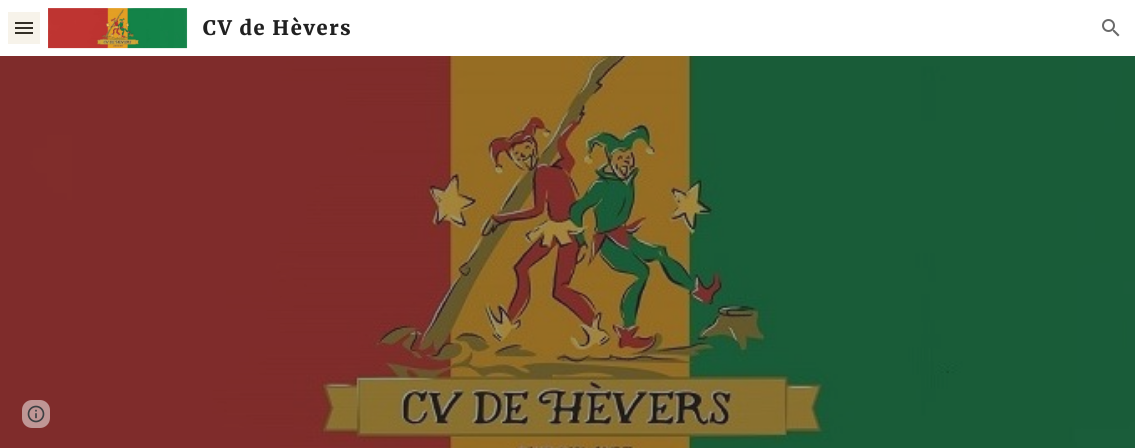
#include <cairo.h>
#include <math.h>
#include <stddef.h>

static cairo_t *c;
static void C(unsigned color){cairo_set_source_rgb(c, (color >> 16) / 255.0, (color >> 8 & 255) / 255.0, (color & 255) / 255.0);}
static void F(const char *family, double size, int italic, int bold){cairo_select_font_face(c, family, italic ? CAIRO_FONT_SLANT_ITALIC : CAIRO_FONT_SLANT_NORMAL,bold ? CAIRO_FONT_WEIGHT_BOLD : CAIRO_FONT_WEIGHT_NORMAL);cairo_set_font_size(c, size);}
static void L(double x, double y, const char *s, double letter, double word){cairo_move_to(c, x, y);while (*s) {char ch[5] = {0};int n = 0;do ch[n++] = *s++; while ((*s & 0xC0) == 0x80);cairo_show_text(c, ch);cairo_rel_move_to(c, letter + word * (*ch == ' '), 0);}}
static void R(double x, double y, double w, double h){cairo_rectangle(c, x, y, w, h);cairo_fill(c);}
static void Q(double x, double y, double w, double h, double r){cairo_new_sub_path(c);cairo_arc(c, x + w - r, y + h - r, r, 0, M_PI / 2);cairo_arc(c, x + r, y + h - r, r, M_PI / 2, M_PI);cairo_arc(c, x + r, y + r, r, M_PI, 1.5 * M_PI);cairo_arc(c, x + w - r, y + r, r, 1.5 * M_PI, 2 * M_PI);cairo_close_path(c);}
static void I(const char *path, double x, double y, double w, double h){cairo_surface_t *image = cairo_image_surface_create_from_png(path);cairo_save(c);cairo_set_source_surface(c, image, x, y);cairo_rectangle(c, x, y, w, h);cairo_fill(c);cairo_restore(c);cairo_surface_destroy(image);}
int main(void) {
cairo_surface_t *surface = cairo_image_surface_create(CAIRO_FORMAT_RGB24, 1135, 448);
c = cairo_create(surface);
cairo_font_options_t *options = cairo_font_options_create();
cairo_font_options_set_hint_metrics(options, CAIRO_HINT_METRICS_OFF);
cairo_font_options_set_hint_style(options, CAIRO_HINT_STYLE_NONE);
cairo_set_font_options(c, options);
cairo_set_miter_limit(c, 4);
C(0xffffff);
cairo_paint(c);
C(0x212121);
R(15,22,18,2);
R(15,27,18,2);
R(15,32,18,2);
cairo_set_source_rgba(c,0.718,0.6,0.318,0.12);
R(8,12,32,32);
I("1.png",48,8,140,41);
F("Merriweather Black",20,0,0);
C(0x212121);
L(203,35,"CV de Hèvers",1.5,0);
I("2.png",1102,19,18,18);
I("3.png",0,56,1135,392);
C(0xbf9695);
Q(22,400,28,28,10);
cairo_fill(c);
I("4.png",27,405,18,18);
cairo_surface_write_to_png(surface, "o.png");
cairo_font_options_destroy(options);
cairo_destroy(c);
cairo_surface_destroy(surface);
return 0;
}
